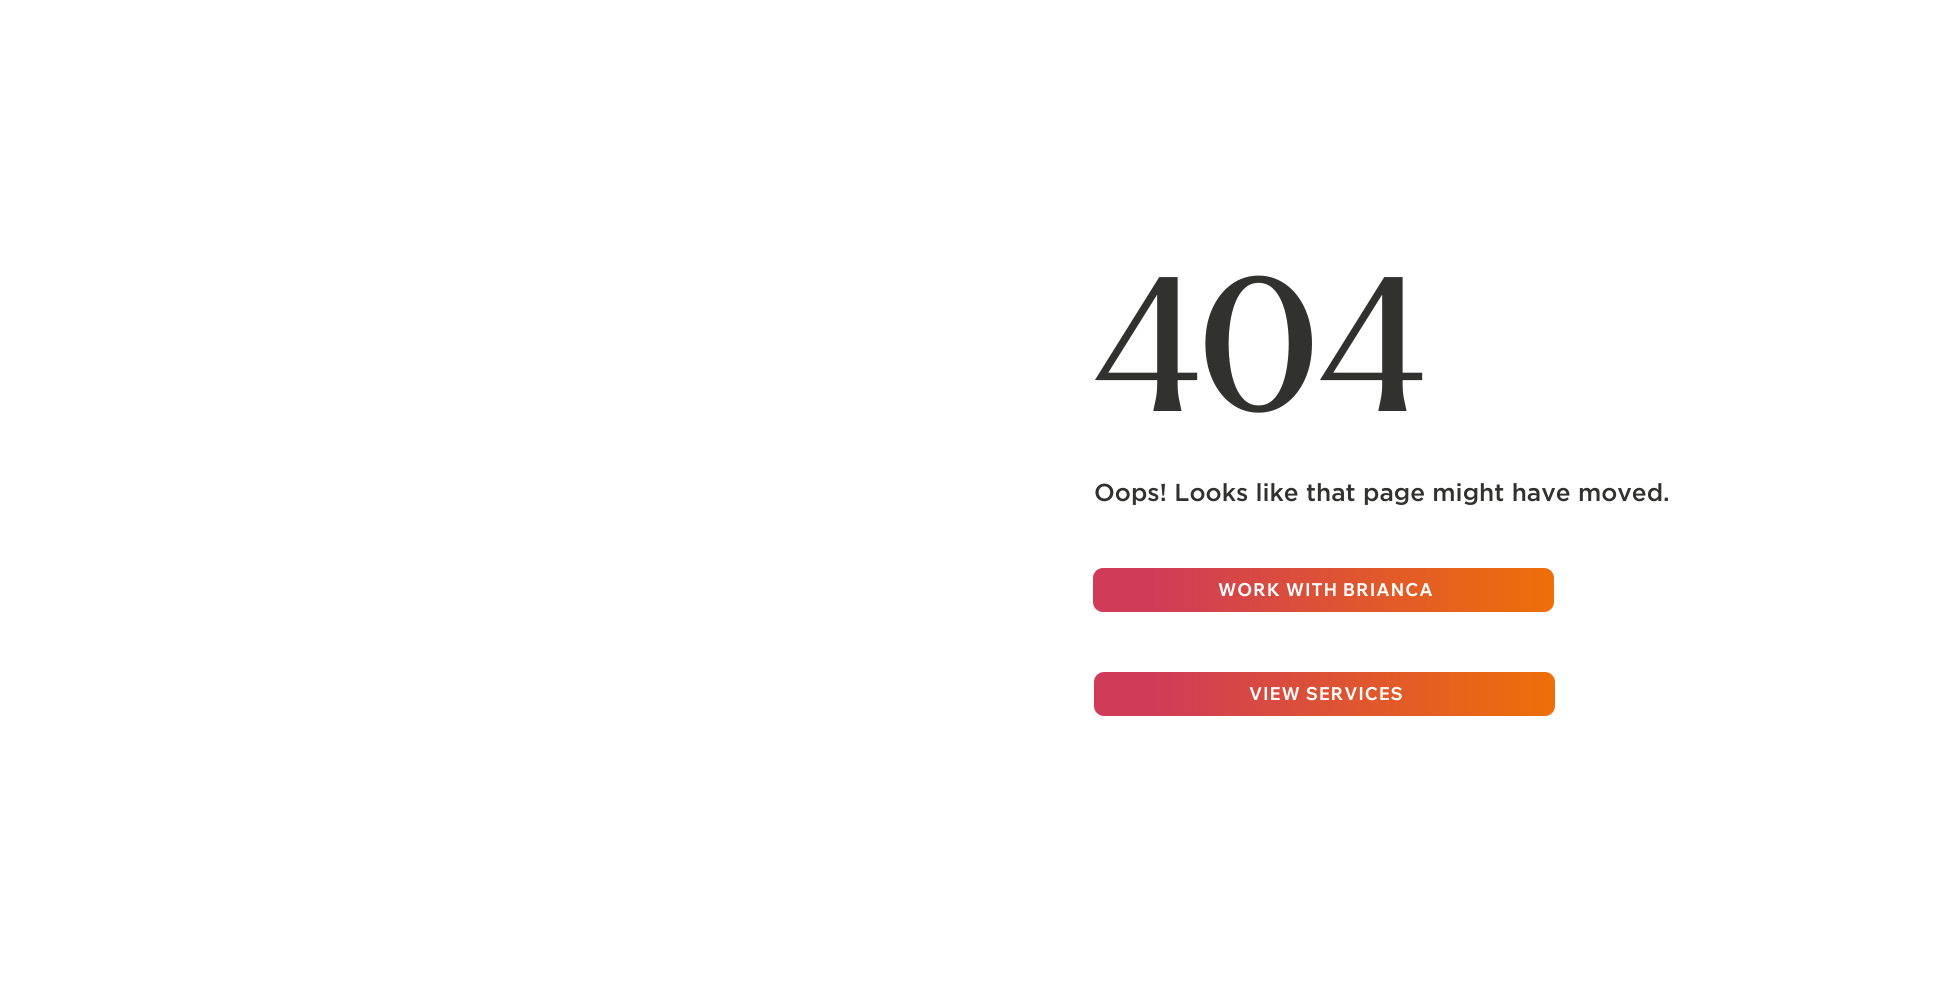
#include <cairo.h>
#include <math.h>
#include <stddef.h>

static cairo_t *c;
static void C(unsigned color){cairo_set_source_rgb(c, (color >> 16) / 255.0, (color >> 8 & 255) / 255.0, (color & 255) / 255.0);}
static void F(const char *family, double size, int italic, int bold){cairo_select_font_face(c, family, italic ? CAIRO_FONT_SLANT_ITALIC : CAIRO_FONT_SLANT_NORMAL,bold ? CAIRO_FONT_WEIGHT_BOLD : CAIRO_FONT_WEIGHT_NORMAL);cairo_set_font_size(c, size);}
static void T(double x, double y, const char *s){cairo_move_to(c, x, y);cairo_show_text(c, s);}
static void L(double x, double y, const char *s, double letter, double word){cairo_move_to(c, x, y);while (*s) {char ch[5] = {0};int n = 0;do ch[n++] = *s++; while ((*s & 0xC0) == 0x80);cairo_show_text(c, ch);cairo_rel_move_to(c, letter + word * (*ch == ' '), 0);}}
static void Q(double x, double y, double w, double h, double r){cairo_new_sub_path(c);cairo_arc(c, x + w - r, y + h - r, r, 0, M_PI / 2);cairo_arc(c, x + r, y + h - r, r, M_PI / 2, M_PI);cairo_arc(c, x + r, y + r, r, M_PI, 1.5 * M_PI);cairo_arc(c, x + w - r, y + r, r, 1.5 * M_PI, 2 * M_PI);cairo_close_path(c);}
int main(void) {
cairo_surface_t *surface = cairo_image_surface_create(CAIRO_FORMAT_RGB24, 1958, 1004);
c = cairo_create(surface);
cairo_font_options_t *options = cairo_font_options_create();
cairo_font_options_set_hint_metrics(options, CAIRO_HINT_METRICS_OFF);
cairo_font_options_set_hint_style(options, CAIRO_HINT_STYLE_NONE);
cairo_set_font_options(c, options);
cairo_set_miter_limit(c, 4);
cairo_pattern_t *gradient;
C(0xffffff);
cairo_paint(c);
F("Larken",186,0,0);
C(0x313130);
T(1093,411,"404");
F("Gotham Medium",24.5,0,0);
T(1094,501,"Oops! Looks like that page might have moved.");
gradient = cairo_pattern_create_linear(1093,590,1554,590);
cairo_pattern_add_color_stop_rgba(gradient,.12,0.816,0.231,0.345,1);
cairo_pattern_add_color_stop_rgba(gradient,1,0.933,0.435,0.035,1);
cairo_set_source(c,gradient);
cairo_pattern_destroy(gradient);
Q(1093,568,461,44,10);
cairo_fill(c);
F("Wix Madefor Text",18,0,1);
C(0xffffff);
L(1218,596,"WORK WITH BRIANCA",.9,0);
gradient = cairo_pattern_create_linear(1094,694,1555,694);
cairo_pattern_add_color_stop_rgba(gradient,.12,0.816,0.231,0.345,1);
cairo_pattern_add_color_stop_rgba(gradient,1,0.933,0.435,0.035,1);
cairo_set_source(c,gradient);
cairo_pattern_destroy(gradient);
Q(1094,672,461,44,10);
cairo_fill(c);
C(0xffffff);
L(1249,700,"VIEW SERVICES",.9,0);
cairo_surface_write_to_png(surface, "o.png");
cairo_font_options_destroy(options);
cairo_destroy(c);
cairo_surface_destroy(surface);
return 0;
}
